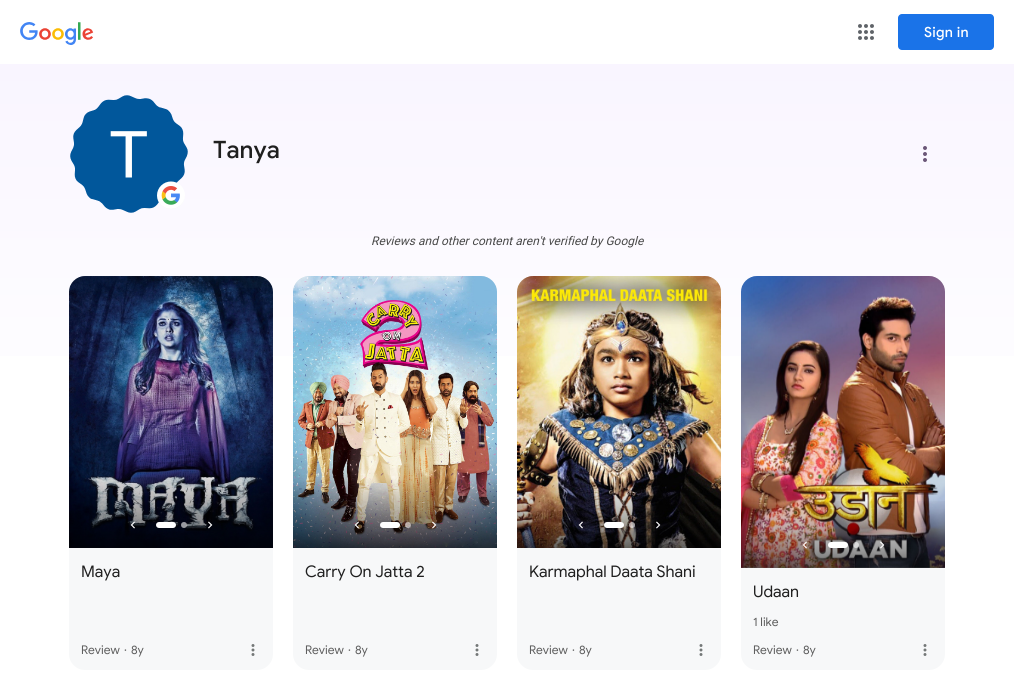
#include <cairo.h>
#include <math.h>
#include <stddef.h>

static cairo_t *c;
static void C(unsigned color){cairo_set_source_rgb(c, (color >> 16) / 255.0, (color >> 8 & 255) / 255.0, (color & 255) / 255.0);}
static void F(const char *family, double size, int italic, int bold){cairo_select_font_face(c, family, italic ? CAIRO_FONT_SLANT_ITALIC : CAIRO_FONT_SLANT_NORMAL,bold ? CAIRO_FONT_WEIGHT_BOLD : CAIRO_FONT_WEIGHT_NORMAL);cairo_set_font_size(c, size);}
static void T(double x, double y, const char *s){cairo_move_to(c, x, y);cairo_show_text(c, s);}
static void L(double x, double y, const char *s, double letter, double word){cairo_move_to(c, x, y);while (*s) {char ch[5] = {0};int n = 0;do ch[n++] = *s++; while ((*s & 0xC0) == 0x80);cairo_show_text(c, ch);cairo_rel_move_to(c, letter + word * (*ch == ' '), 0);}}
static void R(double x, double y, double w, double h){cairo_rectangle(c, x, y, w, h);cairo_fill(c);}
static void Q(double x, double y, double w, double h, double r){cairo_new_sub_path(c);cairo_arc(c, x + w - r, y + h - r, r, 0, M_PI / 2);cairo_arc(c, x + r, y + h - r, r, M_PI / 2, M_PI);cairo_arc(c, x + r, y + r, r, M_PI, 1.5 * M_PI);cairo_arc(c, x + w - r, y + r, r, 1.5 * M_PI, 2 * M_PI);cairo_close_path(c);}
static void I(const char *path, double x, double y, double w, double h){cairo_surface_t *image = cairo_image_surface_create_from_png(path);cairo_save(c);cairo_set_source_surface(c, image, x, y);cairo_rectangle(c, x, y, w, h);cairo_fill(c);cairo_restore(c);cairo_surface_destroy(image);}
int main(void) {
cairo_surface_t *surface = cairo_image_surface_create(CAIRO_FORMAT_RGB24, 1014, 681);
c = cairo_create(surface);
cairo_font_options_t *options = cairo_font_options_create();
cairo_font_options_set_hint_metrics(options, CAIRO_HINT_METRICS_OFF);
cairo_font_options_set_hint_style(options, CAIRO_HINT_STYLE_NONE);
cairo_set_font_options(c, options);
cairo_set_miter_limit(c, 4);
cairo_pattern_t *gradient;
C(0xffffff);
cairo_paint(c);
I("1.png",20,22,74,23);
I("2.png",858,24,16,16);
C(0x1a73e8);
Q(898,14,96,36,4);
cairo_fill(c);
F("Google Sans Medium",14,0,0);
C(0xffffff);
L(924,37,"Sign in",.25,0);
gradient = cairo_pattern_create_linear(507,64,507,454);
cairo_pattern_add_color_stop_rgba(gradient,0,0.976,0.961,1,1);
cairo_pattern_add_color_stop_rgba(gradient,1,1,1,1,1);
cairo_set_source(c,gradient);
cairo_pattern_destroy(gradient);
R(0,64,1014,292);
I("3.png",70,95,118,118);
I("4.png",157,181,28,28);
F("Google Sans Medium",24,0,0);
C(0x1f1f1f);
T(213,158,"Tanya");
I("5.png",923,146,4,16);
F("Roboto",12,1,0);
C(0x474747);
T(371,245,"Reviews and other content aren't verified by Google");
C(0xf7f8f9);
Q(69,276,204,394,16);
cairo_fill(c);
I("6.png",69,276,204,272);
I("7.png",130,521,5,8);
C(0xffffff);
Q(156,522,20,6,3);
cairo_fill(c);
cairo_set_source_rgba(c,1,1,1,0.6);
cairo_arc(c,184,525,3,0,2 * M_PI);
cairo_fill(c);
I("8.png",208,521,5,8);
F("Google Sans",16,0,0);
C(0x1f1f1f);
T(81,577,"Maya");
F("Google Sans",12,0,0);
C(0x5e5e5e);
T(81,654,"Review");
T(124,654,"·");
T(131,654,"8y");
I("9.png",251,644,4,12);
C(0xf7f8f9);
Q(293,276,204,394,16);
cairo_fill(c);
I("10.png",293,276,204,272);
I("11.png",354,521,5,8);
C(0xffffff);
Q(380,522,20,6,3);
cairo_fill(c);
cairo_set_source_rgba(c,1,1,1,0.6);
cairo_arc(c,408,525,3,0,2 * M_PI);
cairo_fill(c);
I("12.png",432,521,5,8);
F("Google Sans",16,0,0);
C(0x1f1f1f);
T(305,577,"Carry On Jatta 2");
F("Google Sans",12,0,0);
C(0x5e5e5e);
T(305,654,"Review");
T(348,654,"·");
T(355,654,"8y");
I("9.png",475,644,4,12);
C(0xf7f8f9);
Q(517,276,204,394,16);
cairo_fill(c);
I("13.png",517,276,204,272);
I("14.png",578,521,5,8);
C(0xffffff);
Q(604,522,20,6,3);
cairo_fill(c);
cairo_set_source_rgba(c,1,1,1,0.6);
cairo_arc(c,632,525,3,0,2 * M_PI);
cairo_fill(c);
I("15.png",656,521,5,8);
F("Google Sans",16,0,0);
C(0x1f1f1f);
T(529,577,"Karmaphal Daata Shani");
F("Google Sans",12,0,0);
C(0x5e5e5e);
T(529,654,"Review");
T(572,654,"·");
T(579,654,"8y");
I("9.png",699,644,4,12);
C(0xf7f8f9);
Q(741,276,204,394,16);
cairo_fill(c);
I("16.png",741,276,204,292);
gradient = cairo_pattern_create_linear(843,498,843,568);
cairo_pattern_add_color_stop_rgba(gradient,0,0,0,0,0);
cairo_pattern_add_color_stop_rgba(gradient,.75,0,0,0,.4);
cairo_pattern_add_color_stop_rgba(gradient,1,0,0,0,.6);
cairo_set_source(c,gradient);
cairo_pattern_destroy(gradient);
R(741,501,204,67);
I("17.png",802,541,5,8);
C(0xffffff);
Q(828,542,20,6,3);
cairo_fill(c);
cairo_set_source_rgba(c,1,1,1,0.6);
cairo_arc(c,856,545,3,0,2 * M_PI);
cairo_fill(c);
I("18.png",880,541,5,8);
F("Google Sans",16,0,0);
C(0x1f1f1f);
T(753,597,"Udaan");
F("Google Sans",12,0,0);
C(0x5e5e5e);
T(753,626,"1 like");
T(753,654,"Review");
T(796,654,"·");
T(803,654,"8y");
I("9.png",923,644,4,12);
cairo_surface_write_to_png(surface, "o.png");
cairo_font_options_destroy(options);
cairo_destroy(c);
cairo_surface_destroy(surface);
return 0;
}
